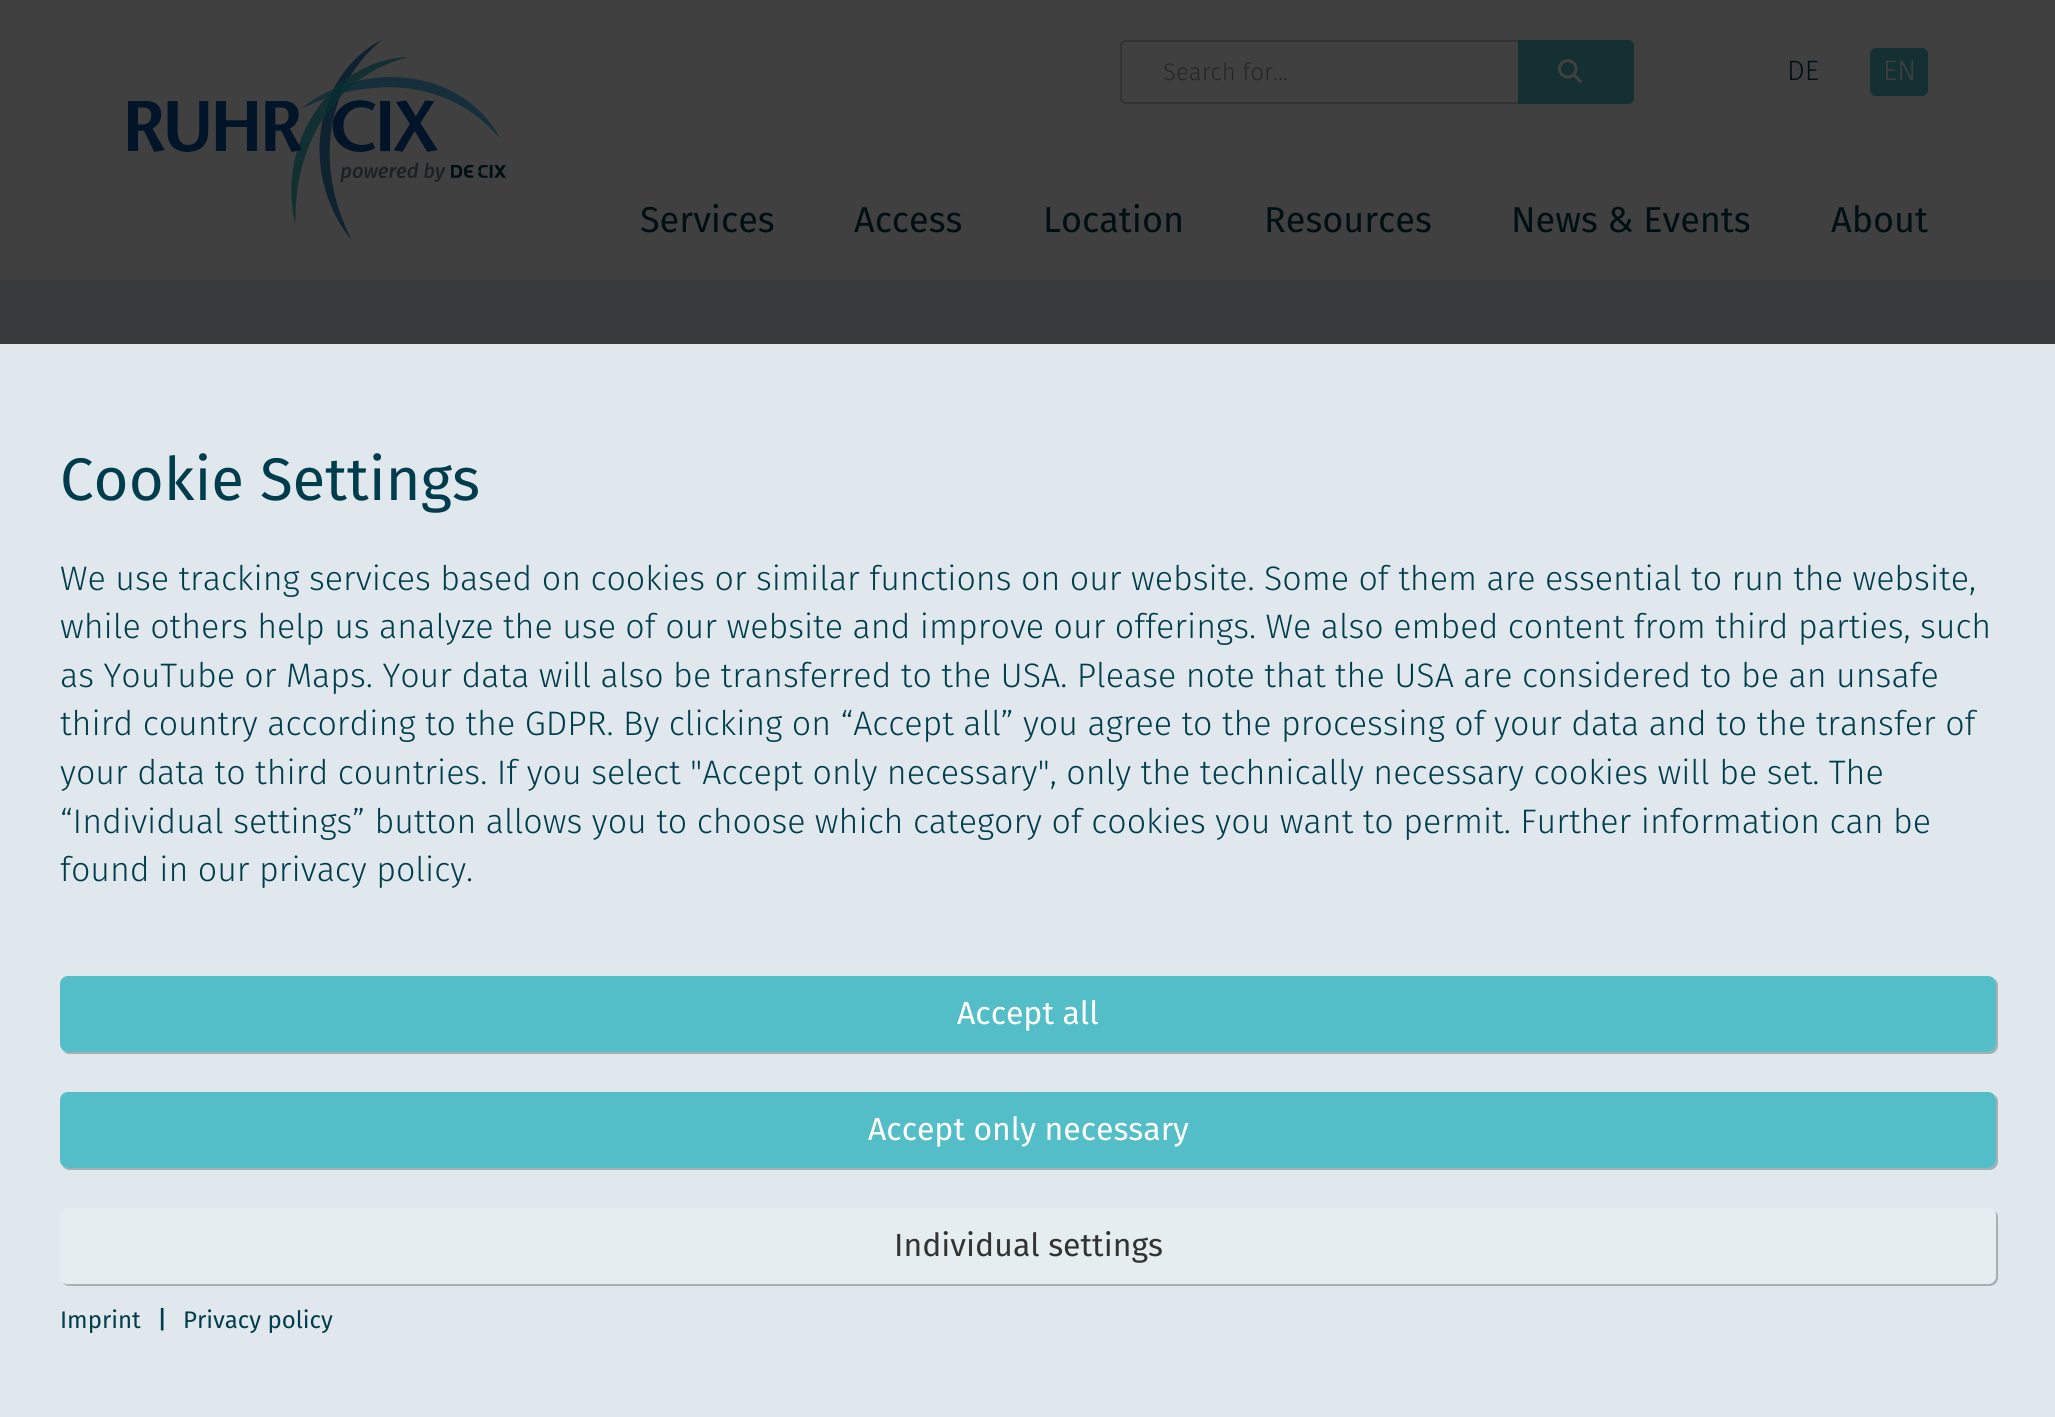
#include <cairo.h>
#include <math.h>
#include <stddef.h>

static cairo_t *c;
static void C(unsigned color){cairo_set_source_rgb(c, (color >> 16) / 255.0, (color >> 8 & 255) / 255.0, (color & 255) / 255.0);}
static void F(const char *family, double size, int italic, int bold){cairo_select_font_face(c, family, italic ? CAIRO_FONT_SLANT_ITALIC : CAIRO_FONT_SLANT_NORMAL,bold ? CAIRO_FONT_WEIGHT_BOLD : CAIRO_FONT_WEIGHT_NORMAL);cairo_set_font_size(c, size);}
static void T(double x, double y, const char *s){cairo_move_to(c, x, y);cairo_show_text(c, s);}
static void R(double x, double y, double w, double h){cairo_rectangle(c, x, y, w, h);cairo_fill(c);}
static void Q(double x, double y, double w, double h, double r){cairo_new_sub_path(c);cairo_arc(c, x + w - r, y + h - r, r, 0, M_PI / 2);cairo_arc(c, x + r, y + h - r, r, M_PI / 2, M_PI);cairo_arc(c, x + r, y + r, r, M_PI, 1.5 * M_PI);cairo_arc(c, x + w - r, y + r, r, 1.5 * M_PI, 2 * M_PI);cairo_close_path(c);}
static void I(const char *path, double x, double y, double w, double h){cairo_surface_t *image = cairo_image_surface_create_from_png(path);cairo_save(c);cairo_set_source_surface(c, image, x, y);cairo_rectangle(c, x, y, w, h);cairo_fill(c);cairo_restore(c);cairo_surface_destroy(image);}
int main(void) {
cairo_surface_t *surface = cairo_image_surface_create(CAIRO_FORMAT_RGB24, 2055, 1417);
c = cairo_create(surface);
cairo_font_options_t *options = cairo_font_options_create();
cairo_font_options_set_hint_metrics(options, CAIRO_HINT_METRICS_OFF);
cairo_font_options_set_hint_style(options, CAIRO_HINT_STYLE_NONE);
cairo_set_font_options(c, options);
cairo_set_miter_limit(c, 4);
C(0x404040);
cairo_paint(c);
I("1.png",128,40,378,200);
cairo_new_path(c);
cairo_move_to(c,1126,41);
cairo_line_to(c,1519,41);
cairo_line_to(c,1519,103);
cairo_line_to(c,1126,103);
cairo_curve_to(c,1123,103,1121,101,1121,98);
cairo_line_to(c,1121,46);
cairo_curve_to(c,1121,43,1123,41,1126,41);
cairo_close_path(c);
C(0x333333);
cairo_stroke(c);
F("Fira Sans Light",24,0,0);
C(0x262626);
T(1163,80,"Search for...");
C(0x153032);
cairo_new_path(c);
cairo_move_to(c,1518,40);
cairo_line_to(c,1628,40);
cairo_curve_to(c,1631.5,40,1634,42.5,1634,46);
cairo_line_to(c,1634,98);
cairo_curve_to(c,1634,101.5,1631.5,104,1628,104);
cairo_line_to(c,1518,104);
cairo_close_path(c);
cairo_fill(c);
I("2.png",1558,59,24,24);
F("Fira Sans Light",28,0,0);
C(0x000f13);
T(1787,80,"DE");
C(0x153032);
Q(1870,48,58,48,6);
cairo_fill(c);
C(0x404040);
T(1883,80,"EN");
F("Fira Sans",36,0,0);
C(0x000f13);
T(640,232,"Services");
T(854,232,"Access");
T(1043,232,"Location");
T(1264,232,"Resources");
T(1511,232,"News & Events");
T(1831,232,"About");
C(0x383a3b);
R(0,280,2055,64);
C(0xe0e8ed);
R(0,344,2055,1073);
F("Fira Sans",60,0,0);
C(0x003d4c);
T(60,500,"Cookie Settings");
F("Fira Sans Light",34,0,0);
T(60,590,"We use tracking services based on cookies or similar functions on our website. Some of them are essential to run the website,");
T(60,638,"while others help us analyze the use of our website and improve our offerings. We also embed content from third parties, such");
T(60,687,"as YouTube or Maps. Your data will also be transferred to the USA. Please note that the USA are considered to be an unsafe");
T(60,735,"third country according to the GDPR. By clicking on “Accept all” you agree to the processing of your data and to the transfer of");
T(60,784,"your data to third countries. If you select \"Accept only necessary\", only the technically necessary cookies will be set. The");
T(60,833,"“Individual settings” button allows you to choose which category of cookies you want to permit. Further information can be");
T(60,881,"found in our privacy policy.");
C(0xa8aeb2);
cairo_new_path(c);
cairo_move_to(c,63,1051);
cairo_curve_to(c,65,1053,67,1054,70,1054);
cairo_line_to(c,1990,1054);
cairo_curve_to(c,1994,1054,1998,1050,1998,1046);
cairo_line_to(c,1998,986);
cairo_curve_to(c,1998,983,1997,981,1995,979);
cairo_curve_to(c,1995,981,1996,982,1996,984);
cairo_line_to(c,1996,1044);
cairo_curve_to(c,1996,1048,1992,1052,1988,1052);
cairo_line_to(c,68,1052);
cairo_curve_to(c,66,1052,65,1051,63,1051);
cairo_close_path(c);
cairo_fill(c);
C(0x54bec8);
Q(60,976,1936,76,8);
cairo_fill(c);
F("Fira Sans",32,0,0);
C(0xffffff);
T(957,1024,"Accept all");
C(0xa8aeb2);
cairo_new_path(c);
cairo_move_to(c,63,1167);
cairo_curve_to(c,65,1169,67,1170,70,1170);
cairo_line_to(c,1990,1170);
cairo_curve_to(c,1994,1170,1998,1166,1998,1162);
cairo_line_to(c,1998,1102);
cairo_curve_to(c,1998,1099,1997,1097,1995,1095);
cairo_curve_to(c,1995,1097,1996,1098,1996,1100);
cairo_line_to(c,1996,1160);
cairo_curve_to(c,1996,1164,1992,1168,1988,1168);
cairo_line_to(c,68,1168);
cairo_curve_to(c,66,1168,65,1167,63,1167);
cairo_close_path(c);
cairo_fill(c);
C(0x54bec8);
Q(60,1092,1936,76,8);
cairo_fill(c);
C(0xffffff);
T(868,1140,"Accept only necessary");
C(0xa8aeb2);
cairo_new_path(c);
cairo_move_to(c,63,1283);
cairo_curve_to(c,65,1285,67,1286,70,1286);
cairo_line_to(c,1990,1286);
cairo_curve_to(c,1994,1286,1998,1282,1998,1278);
cairo_line_to(c,1998,1218);
cairo_curve_to(c,1998,1215,1997,1213,1995,1211);
cairo_curve_to(c,1995,1213,1996,1214,1996,1216);
cairo_line_to(c,1996,1276);
cairo_curve_to(c,1996,1280,1992,1284,1988,1284);
cairo_line_to(c,68,1284);
cairo_curve_to(c,66,1284,65,1283,63,1283);
cairo_close_path(c);
cairo_fill(c);
C(0xe6edf1);
Q(60,1208,1936,76,8);
cairo_fill(c);
C(0x333333);
T(894,1256,"Individual settings");
F("Fira Sans",24,0,0);
C(0x003d4c);
T(60,1328,"Imprint");
F("Fira Sans",24,0,1);
T(157,1328,"|");
F("Fira Sans",24,0,0);
T(183,1328,"Privacy policy");
cairo_surface_write_to_png(surface, "o.png");
cairo_font_options_destroy(options);
cairo_destroy(c);
cairo_surface_destroy(surface);
return 0;
}
